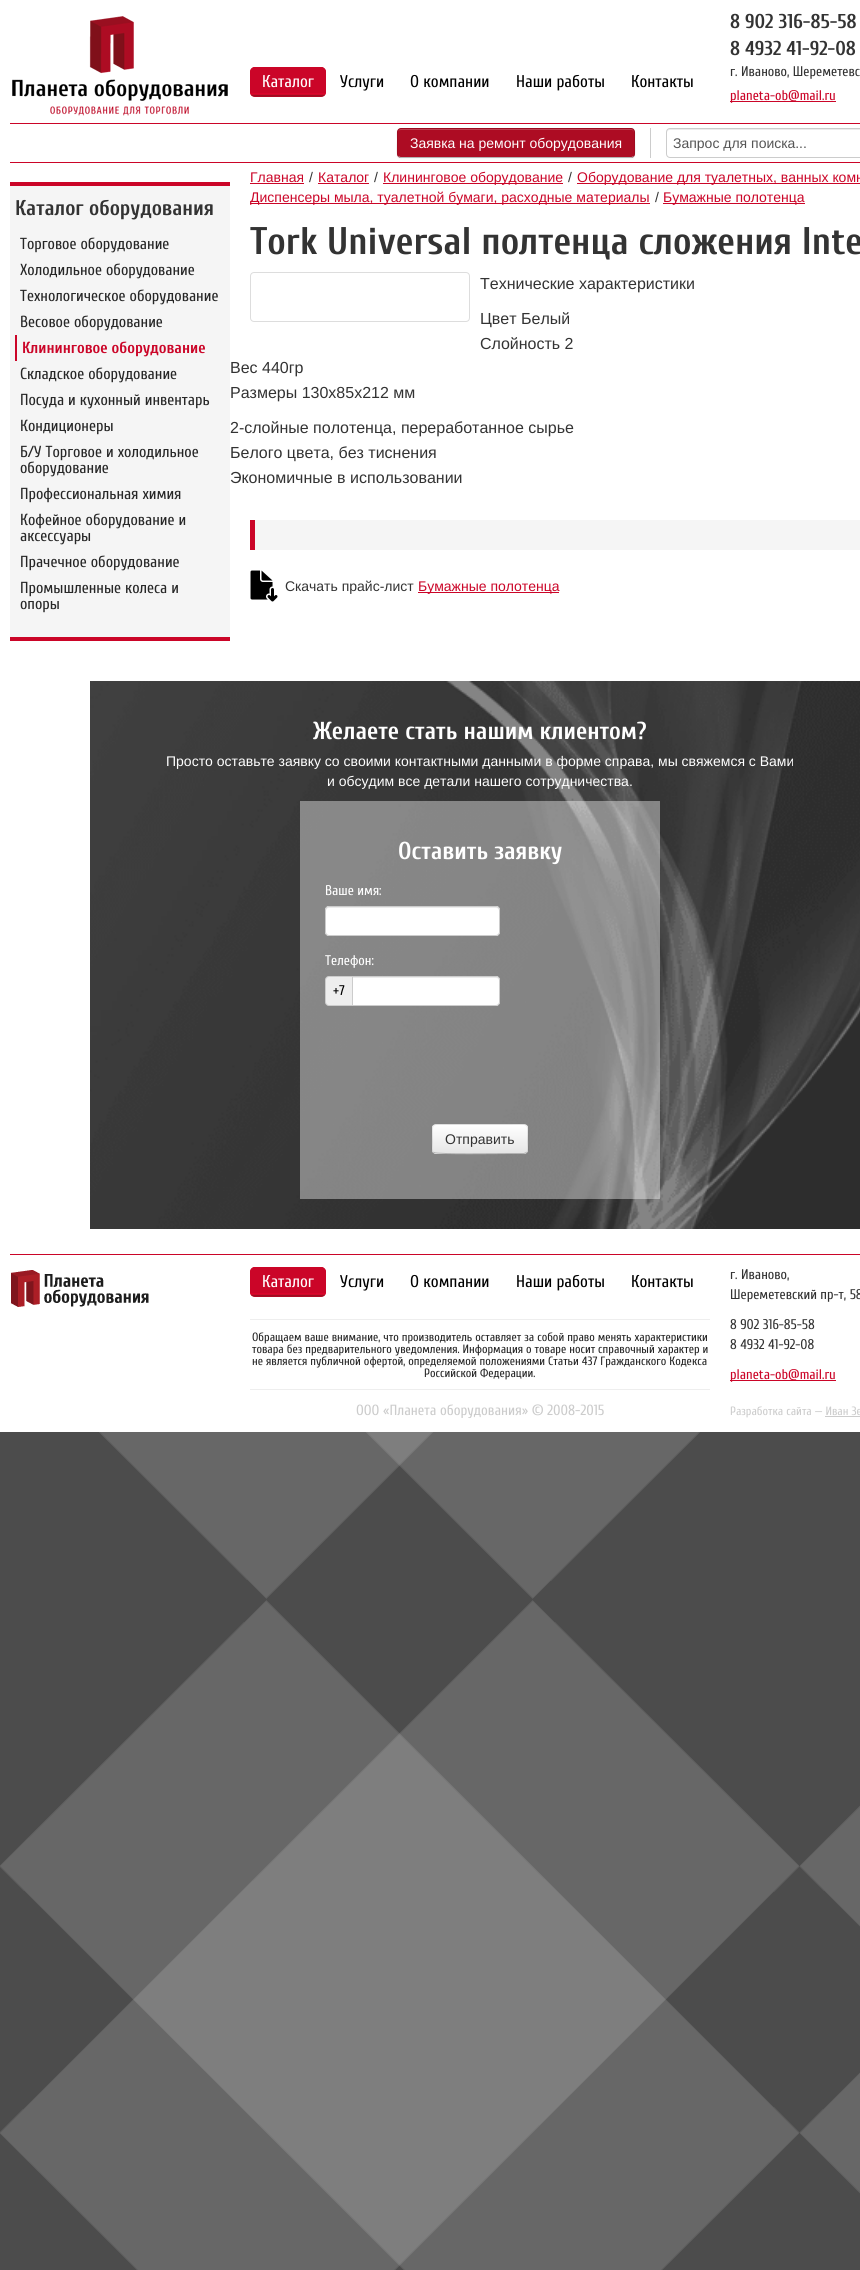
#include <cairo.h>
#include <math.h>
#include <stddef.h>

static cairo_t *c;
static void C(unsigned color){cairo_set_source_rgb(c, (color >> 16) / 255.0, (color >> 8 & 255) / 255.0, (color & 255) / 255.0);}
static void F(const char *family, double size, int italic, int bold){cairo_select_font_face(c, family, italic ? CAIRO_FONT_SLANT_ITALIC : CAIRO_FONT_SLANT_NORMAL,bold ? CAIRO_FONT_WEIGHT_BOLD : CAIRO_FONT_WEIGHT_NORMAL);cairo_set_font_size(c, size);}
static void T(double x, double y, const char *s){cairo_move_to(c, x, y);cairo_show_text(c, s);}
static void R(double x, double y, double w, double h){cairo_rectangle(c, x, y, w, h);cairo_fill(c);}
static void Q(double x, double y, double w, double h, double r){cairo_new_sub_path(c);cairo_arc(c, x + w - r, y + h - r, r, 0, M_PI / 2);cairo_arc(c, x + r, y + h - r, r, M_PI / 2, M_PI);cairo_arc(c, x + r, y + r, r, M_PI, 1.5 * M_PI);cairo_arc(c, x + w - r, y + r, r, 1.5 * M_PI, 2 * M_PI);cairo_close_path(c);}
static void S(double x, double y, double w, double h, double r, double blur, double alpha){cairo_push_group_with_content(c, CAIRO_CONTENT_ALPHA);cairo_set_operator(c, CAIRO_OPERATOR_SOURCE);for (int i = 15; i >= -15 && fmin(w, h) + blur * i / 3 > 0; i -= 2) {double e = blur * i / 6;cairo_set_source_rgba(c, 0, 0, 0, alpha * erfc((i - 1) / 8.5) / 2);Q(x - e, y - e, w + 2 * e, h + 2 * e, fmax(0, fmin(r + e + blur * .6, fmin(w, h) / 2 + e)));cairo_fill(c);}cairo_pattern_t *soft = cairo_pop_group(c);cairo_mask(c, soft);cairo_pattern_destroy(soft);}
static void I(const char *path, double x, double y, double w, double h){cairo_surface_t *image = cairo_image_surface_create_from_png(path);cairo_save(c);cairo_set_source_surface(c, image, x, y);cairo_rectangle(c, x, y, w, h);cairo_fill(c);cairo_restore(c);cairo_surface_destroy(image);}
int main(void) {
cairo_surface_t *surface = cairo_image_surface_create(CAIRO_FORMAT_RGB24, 860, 2270);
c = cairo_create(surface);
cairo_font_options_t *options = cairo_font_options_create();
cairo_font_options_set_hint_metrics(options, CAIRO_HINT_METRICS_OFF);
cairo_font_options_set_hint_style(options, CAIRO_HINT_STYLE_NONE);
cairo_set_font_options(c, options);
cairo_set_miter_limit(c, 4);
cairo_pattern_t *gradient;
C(0xffffff);
cairo_paint(c);
I("1.png",0,1432,860,838);
I("2.png",12,16,216,100);
C(0xcb0528);
Q(250,67,76,30,5);
cairo_fill(c);
I("3.png",250,67,76,30);
F("Cuprum",17,0,0);
C(0xffffff);
T(262,87,"Каталог");
C(0x000000);
T(340,87,"Услуги");
T(410,87,"О компании");
T(516,87,"Наши работы");
T(631,87,"Контакты");
F("Cuprum",20,0,1);
C(0x333333);
T(730,28,"8 902 316-85-58");
T(730,55,"8 4932 41-92-08");
F("Cuprum",14,0,0);
T(730,76,"г. Иваново, Шереметевс");
C(0xcb0528);
R(730,101,106,1);
T(730,100,"planeta-ob@mail.ru");
R(10,123,850,1);
R(10,162,850,1);
C(0x000000);
S(397,129,238,30,4,1,.05);
C(0xad0c23);
Q(397,128,238,30,4);
cairo_fill(c);
C(0xbd3d4f);
cairo_new_path(c);
cairo_move_to(c,401,130);
cairo_line_to(c,632,130);
cairo_line_to(c,634,131);
cairo_line_to(c,634,133);
cairo_curve_to(c,634,131,633,129,631,129);
cairo_line_to(c,401,129);
cairo_curve_to(c,399,129,398,131,398,133);
cairo_curve_to(c,398,131,399,130,401,130);
cairo_close_path(c);
cairo_fill(c);
cairo_new_path(c);
cairo_move_to(c,633.5,156.5);
cairo_curve_to(c,633,157,632,157.5,631,157.5);
cairo_line_to(c,401,157.5);
cairo_curve_to(c,400,157.5,399,157,398.5,156.5);
C(0xb3b3b3);
cairo_set_line_width(c,1);
cairo_stroke(c);
cairo_new_path(c);
cairo_move_to(c,398.5,156.5);
cairo_curve_to(c,396,154,397.5,142.5,397.5,139.5);
cairo_curve_to(c,397.5,136.5,396,128.5,401,128.5);
cairo_line_to(c,631,128.5);
cairo_curve_to(c,636,128.5,634.5,136.5,634.5,139.5);
cairo_curve_to(c,634.5,142.5,636,154,633.5,156.5);
cairo_set_source_rgba(c,0,0,0,0.1);
cairo_stroke(c);
F("Liberation Sans",14,0,0);
C(0xffffff);
T(410,148,"Заявка на ремонт оборудования");
C(0xcccccc);
R(650,128,1,30);
C(0xececec);
cairo_new_path(c);
cairo_move_to(c,670,130);
cairo_line_to(c,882,130);
cairo_curve_to(c,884,130,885,131,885,133);
cairo_line_to(c,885,132);
cairo_curve_to(c,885,130,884,129,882,129);
cairo_line_to(c,670,129);
cairo_curve_to(c,668,129,667,130,667,132);
cairo_line_to(c,667,133);
cairo_curve_to(c,667,131,668,130,670,130);
cairo_close_path(c);
cairo_fill(c);
Q(666.5,128.5,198,29,3.5);
C(0xcccccc);
cairo_stroke(c);
C(0x555555);
T(673,148,"Запрос для поиска...");
C(0xf5f5f5);
R(10,186,220,451);
C(0xcb0528);
R(10,182,220,4);
R(10,637,220,4);
F("Cuprum",21.25,0,1);
C(0x333333);
T(15,215,"Каталог оборудования");
F("Cuprum",16,0,0);
C(0x272727);
T(20,249,"Торговое оборудование");
T(20,275,"Холодильное оборудование");
T(20,301,"Технологическое оборудование");
T(20,327,"Весовое оборудование");
C(0xcb0528);
R(15,335,2,26);
F("Cuprum",16,0,1);
T(22,353,"Клининговое оборудование");
F("Cuprum",16,0,0);
C(0x272727);
T(20,379,"Складское оборудование");
T(20,405,"Посуда и кухонный инвентарь");
T(20,431,"Кондиционеры");
T(20,457,"Б/У Торговое и холодильное");
T(20,473,"оборудование");
T(20,499,"Профессиональная химия");
T(20,525,"Кофейное оборудование и");
T(20,541,"аксессуары");
T(20,567,"Прачечное оборудование");
T(20,593,"Промышленные колеса и");
T(20,609,"опоры");
F("Liberation Sans",14,0,0);
C(0xcb0528);
T(250,182,"Главная");
R(250,183,54,1);
C(0x333333);
T(309,182,"/");
C(0xcb0528);
T(318,182,"Каталог");
R(318,183,51,1);
C(0x333333);
T(374,182,"/");
C(0xcb0528);
R(383,183,180,1);
T(383,182,"Клининговое оборудование");
C(0x333333);
T(568,182,"/");
C(0xcb0528);
R(577,183,283,1);
T(577,182,"Оборудование для туалетных, ванных комн");
R(250,203,400,1);
T(250,202,"Диспенсеры мыла, туалетной бумаги, расходные материалы");
C(0x333333);
T(655,202,"/");
C(0xcb0528);
R(663,203,142,1);
T(663,202,"Бумажные полотенца");
F("Cuprum",38.5,0,1);
C(0x333333);
T(250,254,"Tork Universal полтенца сложения Inte");
Q(250.5,272.5,219,49,3.5);
C(0xdddddd);
cairo_stroke(c);
F("Liberation Sans",16,0,0);
C(0x333333);
T(480,289,"Технические характеристики");
T(480,324,"Цвет Белый");
T(480,349,"Слойность 2");
T(230,373,"Вес 440гр");
T(230,398,"Размеры 130х85х212 мм");
T(230,433,"2-слойные полотенца, переработанное сырье");
T(230,458,"Белого цвета, без тиснения");
T(230,483,"Экономичные в использовании");
C(0xf5f5f5);
R(255,520,605,30);
C(0xcb0528);
R(250,520,5,30);
I("4.png",250,570,28,32);
F("Liberation Sans",14,0,0);
C(0x333333);
T(285,591,"Скачать прайс-лист");
C(0xcb0528);
R(418,592,141,1);
T(418,591,"Бумажные полотенца");
I("5.png",90,681,770,548);
F("Cuprum",24.5,0,1);
C(0xffffff);
T(313,739,"Желаете стать нашим клиентом?");
F("Liberation Sans",14,0,0);
T(166,766,"Просто оставьте заявку со своими контактными данными в форме справа, мы свяжемся с Вами");
T(327,786,"и обсудим все детали нашего сотрудничества.");
cairo_set_source_rgba(c,1,1,1,0.4);
R(300,801,360,398);
F("Cuprum",24.5,0,1);
C(0xffffff);
T(398,859,"Оставить заявку");
F("Cuprum",14,0,0);
T(325,895,"Ваше имя:");
Q(325,906,175,30,4);
cairo_fill(c);
C(0xececec);
cairo_new_path(c);
cairo_move_to(c,329,908);
cairo_line_to(c,496,908);
cairo_curve_to(c,498,908,499,909,499,911);
cairo_line_to(c,499,910);
cairo_curve_to(c,499,908,498,907,496,907);
cairo_line_to(c,329,907);
cairo_curve_to(c,327,907,326,908,326,910);
cairo_line_to(c,326,911);
cairo_curve_to(c,326,909,327,908,329,908);
cairo_close_path(c);
cairo_fill(c);
Q(325.5,906.5,174,29,3.5);
C(0xcccccc);
cairo_stroke(c);
C(0xffffff);
T(325,965,"Телефон:");
C(0xeeeeee);
cairo_new_path(c);
cairo_move_to(c,329,976.5);
cairo_line_to(c,352.5,976.5);
cairo_line_to(c,352.5,1005.5);
cairo_line_to(c,329,1005.5);
cairo_curve_to(c,327,1005.5,325.5,1004,325.5,1002);
cairo_line_to(c,325.5,980);
cairo_curve_to(c,325.5,978,327,976.5,329,976.5);
cairo_close_path(c);
cairo_fill_preserve(c);
C(0xcccccc);
cairo_stroke(c);
C(0x000000);
T(333,995,"+7");
C(0xffffff);
cairo_new_path(c);
cairo_move_to(c,352,976);
cairo_line_to(c,496,976);
cairo_curve_to(c,498,976,500,978,500,980);
cairo_line_to(c,500,1002);
cairo_curve_to(c,500,1004,498,1006,496,1006);
cairo_line_to(c,352,1006);
cairo_close_path(c);
cairo_fill(c);
C(0xececec);
cairo_new_path(c);
cairo_move_to(c,353,978);
cairo_line_to(c,496,978);
cairo_curve_to(c,498,978,499,979,499,981);
cairo_curve_to(c,499,979,498,977,496,977);
cairo_line_to(c,353,977);
cairo_close_path(c);
cairo_fill(c);
cairo_new_path(c);
cairo_move_to(c,352.5,976.5);
cairo_line_to(c,496,976.5);
cairo_curve_to(c,498,976.5,499.5,978,499.5,980);
cairo_line_to(c,499.5,1002);
cairo_curve_to(c,499.5,1004,498,1005.5,496,1005.5);
cairo_line_to(c,352.5,1005.5);
cairo_close_path(c);
C(0xcccccc);
cairo_stroke(c);
C(0xf5f5f5);
Q(432,1124,96,30,4);
cairo_fill(c);
cairo_save(c);
Q(432,1124,96,30,4);
cairo_clip(c);
gradient = cairo_pattern_create_linear(480,1125,480,1153);
cairo_pattern_add_color_stop_rgba(gradient,0,1,1,1,1);
cairo_pattern_add_color_stop_rgba(gradient,1,0.902,0.902,0.902,1);
cairo_set_source(c,gradient);
cairo_pattern_destroy(gradient);
R(432,1125,96,28);
cairo_restore(c);
cairo_new_path(c);
cairo_move_to(c,526.5,1152.5);
cairo_line_to(c,524,1153.5);
cairo_line_to(c,509.5,1153.5);
cairo_curve_to(c,501,1153.5,436,1154.5,434,1152.5);
cairo_line_to(c,433.5,1152.5);
C(0xb3b3b3);
cairo_stroke(c);
cairo_new_path(c);
cairo_move_to(c,433.5,1152.5);
cairo_curve_to(c,431,1150,432.5,1145.5,432.5,1142.5);
cairo_curve_to(c,432.5,1121.5,429,1124.5,450.5,1124.5);
cairo_line_to(c,509.5,1124.5);
cairo_curve_to(c,531,1124.5,527.5,1121.5,527.5,1142.5);
cairo_curve_to(c,527.5,1145.5,529,1150,526.5,1152.5);
cairo_set_source_rgba(c,0,0,0,0.1);
cairo_stroke(c);
F("Liberation Sans",14,0,0);
C(0x333333);
T(445,1144,"Отправить");
C(0xcb0528);
R(10,1254,850,1);
I("6.png",11,1270,138,37);
Q(250,1267,76,30,5);
cairo_fill(c);
I("7.png",250,1267,76,30);
F("Cuprum",17,0,0);
C(0xffffff);
T(262,1287,"Каталог");
C(0x000000);
T(340,1287,"Услуги");
T(410,1287,"О компании");
T(516,1287,"Наши работы");
T(631,1287,"Контакты");
C(0xeeeeee);
R(250,1319,460,1);
F("Cuprum",12,0,0);
C(0x272727);
T(252,1341,"Обращаем ваше внимание, что производитель оставляет за собой право менять характеристики");
T(252,1353,"товара без предварительного уведомления. Информация о товаре носит справочный характер и");
T(252,1365,"не является публичной офертой, определяемой положениями Статьи 437 Гражданского Кодекса");
T(424,1377,"Российской Федерации.");
C(0xeeeeee);
R(250,1389,460,1);
F("Cuprum",14,0,0);
C(0x333333);
T(730,1279,"г. Иваново,");
T(730,1299,"Шереметевский пр-т, 58");
T(730,1329,"8 902 316-85-58");
T(730,1349,"8 4932 41-92-08");
C(0xcb0528);
R(730,1380,106,1);
T(730,1379,"planeta-ob@mail.ru");
F("Cuprum",14.7,0,0);
C(0xcccccc);
T(356,1415,"ООО «Планета оборудования» © 2008-2015");
F("Cuprum",12,0,0);
T(730,1415,"Разработка сайта — Иван Зе");
R(825,1416,35,1);
cairo_surface_write_to_png(surface, "o.png");
cairo_font_options_destroy(options);
cairo_destroy(c);
cairo_surface_destroy(surface);
return 0;
}
